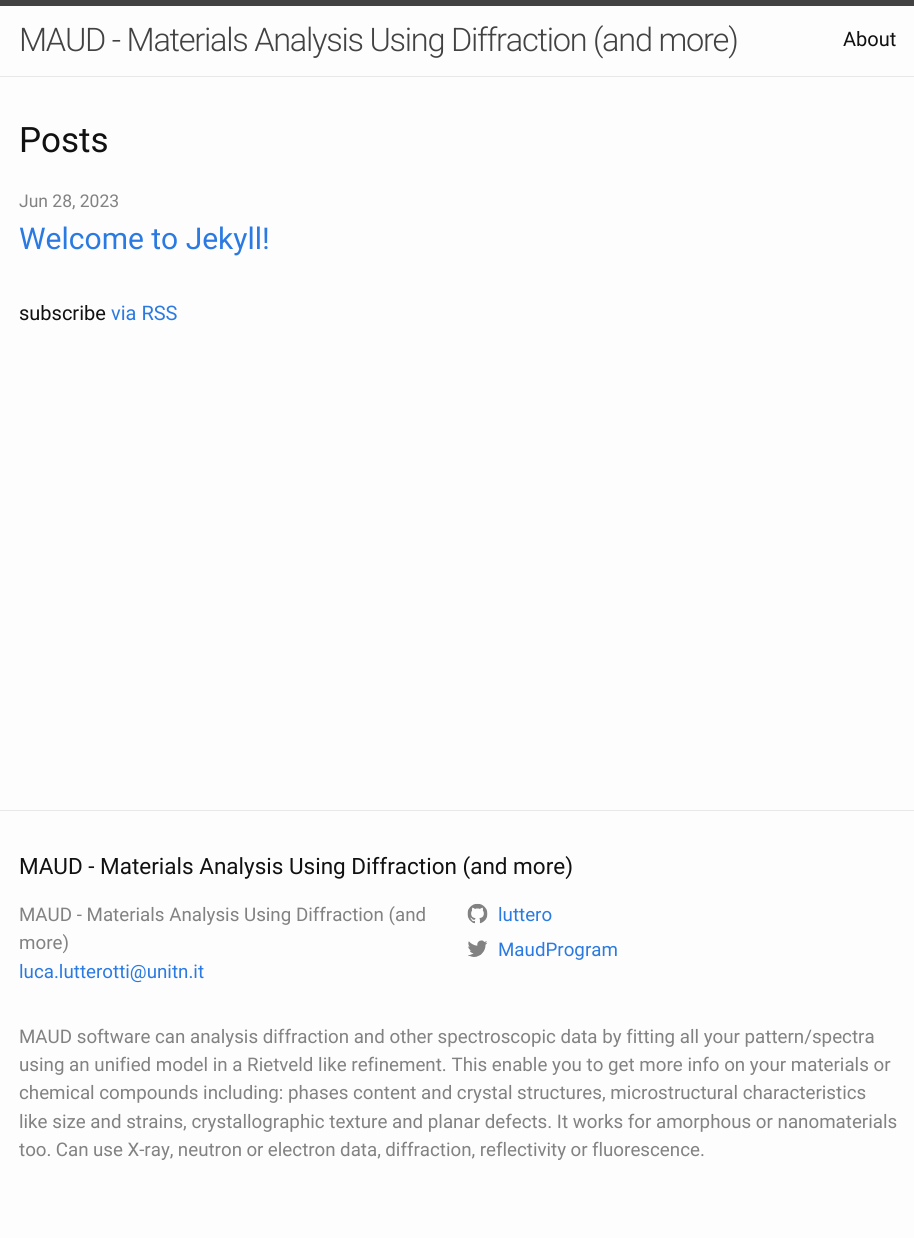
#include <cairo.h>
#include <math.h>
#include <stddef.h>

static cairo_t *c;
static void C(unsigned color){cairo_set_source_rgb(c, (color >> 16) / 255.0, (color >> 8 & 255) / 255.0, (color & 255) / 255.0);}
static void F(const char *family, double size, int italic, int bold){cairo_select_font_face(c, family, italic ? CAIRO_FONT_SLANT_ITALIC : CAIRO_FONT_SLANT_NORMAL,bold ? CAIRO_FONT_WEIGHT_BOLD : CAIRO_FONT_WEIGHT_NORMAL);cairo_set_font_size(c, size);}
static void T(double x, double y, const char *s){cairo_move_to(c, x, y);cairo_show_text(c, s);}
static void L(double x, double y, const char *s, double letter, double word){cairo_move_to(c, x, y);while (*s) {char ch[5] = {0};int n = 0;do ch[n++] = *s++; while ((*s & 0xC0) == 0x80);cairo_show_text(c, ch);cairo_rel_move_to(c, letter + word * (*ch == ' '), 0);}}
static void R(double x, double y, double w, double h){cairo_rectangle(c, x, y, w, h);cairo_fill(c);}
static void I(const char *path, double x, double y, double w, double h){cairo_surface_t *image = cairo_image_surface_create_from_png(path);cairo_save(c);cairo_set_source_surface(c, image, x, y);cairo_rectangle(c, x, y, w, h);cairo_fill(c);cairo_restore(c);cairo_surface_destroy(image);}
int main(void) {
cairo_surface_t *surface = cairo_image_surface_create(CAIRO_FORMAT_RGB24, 914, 1238);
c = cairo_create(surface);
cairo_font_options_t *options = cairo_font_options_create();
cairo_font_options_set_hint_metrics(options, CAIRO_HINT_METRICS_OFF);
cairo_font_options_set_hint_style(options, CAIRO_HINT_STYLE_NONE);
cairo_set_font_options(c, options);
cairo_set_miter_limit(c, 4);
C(0xfdfdfd);
cairo_paint(c);
C(0x424242);
R(0,0,914,6);
C(0xe8e8e8);
R(0,76,914,1);
F("Roboto Light",32.5,0,0);
C(0x424242);
L(19,51,"MAUD - Materials Analysis Using Diffraction (and more)",-1.25,0);
F("Roboto",20,0,0);
C(0x111111);
T(843,46,"About");
F("Roboto",35,0,0);
T(19,152,"Posts");
F("Roboto",17.5,0,0);
C(0x828282);
T(19,207,"Jun 28, 2023");
F("Roboto",30,0,0);
C(0x2a7ae2);
T(19,249,"Welcome to Jekyll!");
F("Roboto",20,0,0);
C(0x111111);
T(19,320,"subscribe");
C(0x2a7ae2);
T(111,320,"via RSS");
C(0xe8e8e8);
R(0,810,914,1);
F("Roboto",22.5,0,0);
C(0x111111);
T(19,874,"MAUD - Materials Analysis Using Diffraction (and more)");
F("Roboto",18.75,0,0);
C(0x828282);
T(19,921,"MAUD - Materials Analysis Using Diffraction (and");
T(19,949,"more)");
C(0x2a7ae2);
T(19,978,"luca.lutterotti@unitn.it");
I("1.png",467,903,21,21);
T(498,921,"luttero");
I("2.png",468,940,20,17);
T(498,956,"MaudProgram");
C(0x828282);
T(19,1043,"MAUD software can analysis diffraction and other spectroscopic data by fitting all your pattern/spectra");
T(19,1071,"using an unified model in a Rietveld like refinement. This enable you to get more info on your materials or");
T(19,1099,"chemical compounds including:");
T(288,1099,"phases content and crystal structures, microstructural characteristics");
T(19,1128,"like size and strains, crystallographic texture and planar defects. It works for amorphous or nanomaterials");
L(19,1156,"too. Can use X-ray, neutron or electron data, diffraction, reflectivity or fluorescence.",0,-.25);
cairo_surface_write_to_png(surface, "o.png");
cairo_font_options_destroy(options);
cairo_destroy(c);
cairo_surface_destroy(surface);
return 0;
}
